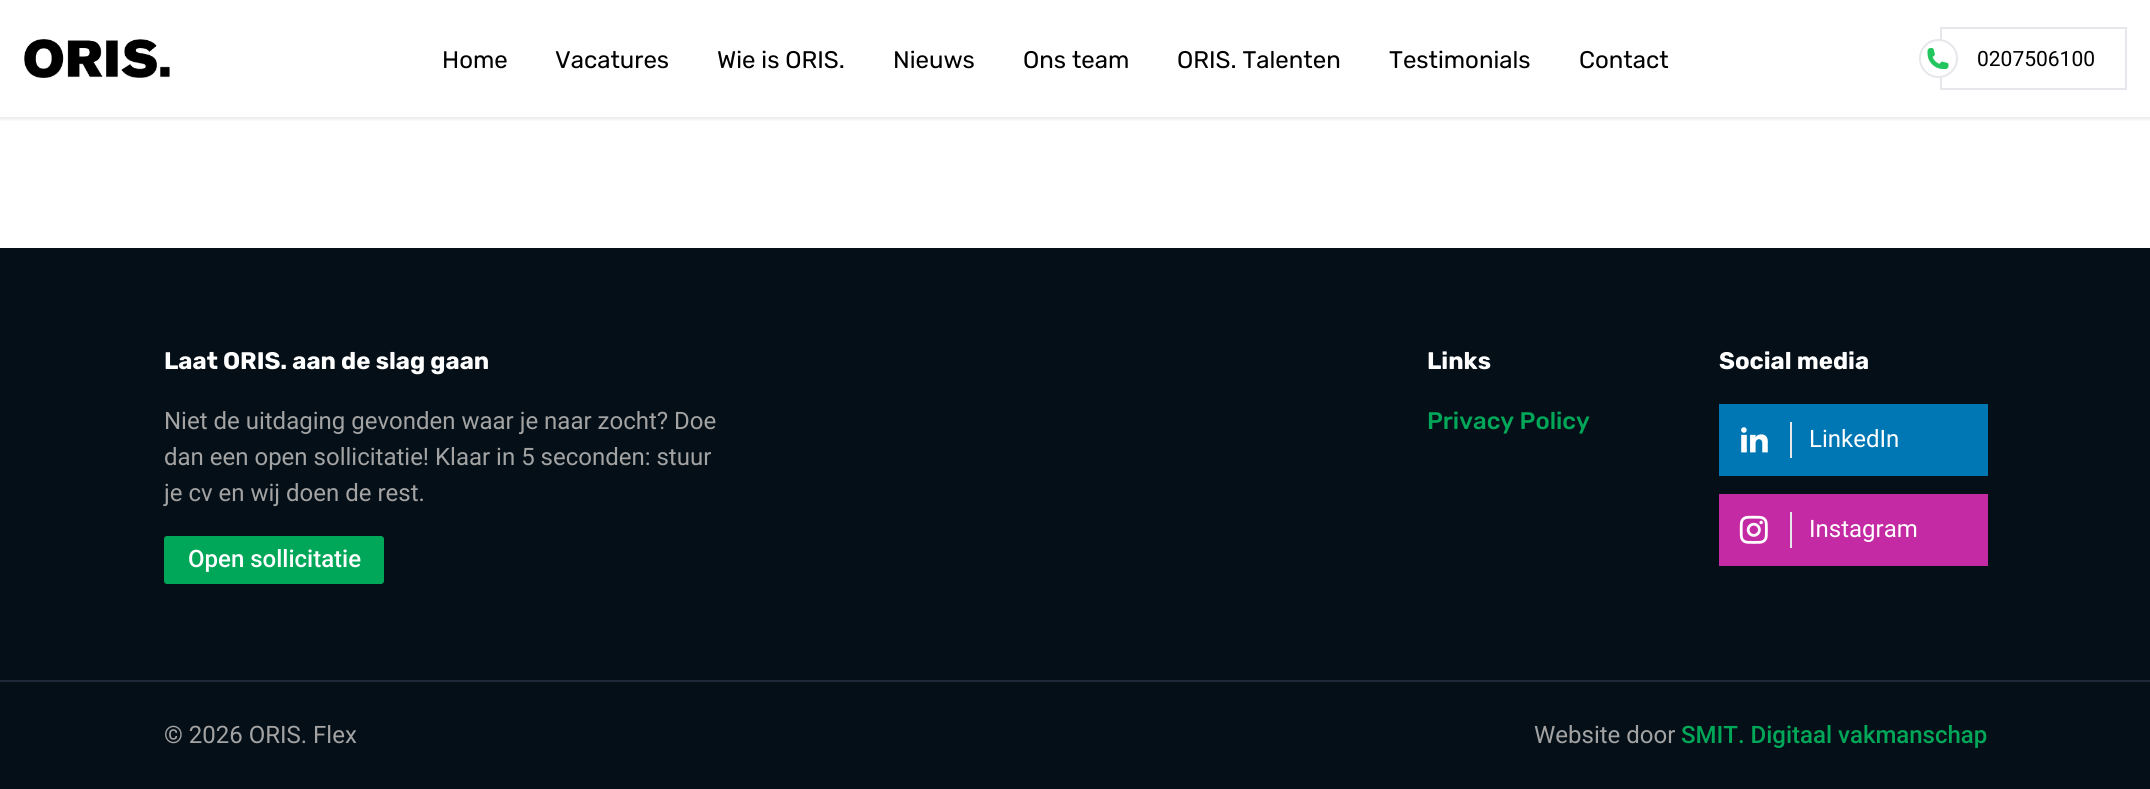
#include <cairo.h>
#include <math.h>
#include <stddef.h>

static cairo_t *c;
static void C(unsigned color){cairo_set_source_rgb(c, (color >> 16) / 255.0, (color >> 8 & 255) / 255.0, (color & 255) / 255.0);}
static void F(const char *family, double size, int italic, int bold){cairo_select_font_face(c, family, italic ? CAIRO_FONT_SLANT_ITALIC : CAIRO_FONT_SLANT_NORMAL,bold ? CAIRO_FONT_WEIGHT_BOLD : CAIRO_FONT_WEIGHT_NORMAL);cairo_set_font_size(c, size);}
static void T(double x, double y, const char *s){cairo_move_to(c, x, y);cairo_show_text(c, s);}
static void R(double x, double y, double w, double h){cairo_rectangle(c, x, y, w, h);cairo_fill(c);}
static void Q(double x, double y, double w, double h, double r){cairo_new_sub_path(c);cairo_arc(c, x + w - r, y + h - r, r, 0, M_PI / 2);cairo_arc(c, x + r, y + h - r, r, M_PI / 2, M_PI);cairo_arc(c, x + r, y + r, r, M_PI, 1.5 * M_PI);cairo_arc(c, x + w - r, y + r, r, 1.5 * M_PI, 2 * M_PI);cairo_close_path(c);}
static void S(double x, double y, double w, double h, double r, double blur, double alpha){cairo_push_group_with_content(c, CAIRO_CONTENT_ALPHA);cairo_set_operator(c, CAIRO_OPERATOR_SOURCE);for (int i = 15; i >= -15 && fmin(w, h) + blur * i / 3 > 0; i -= 2) {double e = blur * i / 6;cairo_set_source_rgba(c, 0, 0, 0, alpha * erfc((i - 1) / 8.5) / 2);Q(x - e, y - e, w + 2 * e, h + 2 * e, fmax(0, fmin(r + e + blur * .6, fmin(w, h) / 2 + e)));cairo_fill(c);}cairo_pattern_t *soft = cairo_pop_group(c);cairo_mask(c, soft);cairo_pattern_destroy(soft);}
static void I(const char *path, double x, double y, double w, double h){cairo_surface_t *image = cairo_image_surface_create_from_png(path);cairo_save(c);cairo_set_source_surface(c, image, x, y);cairo_rectangle(c, x, y, w, h);cairo_fill(c);cairo_restore(c);cairo_surface_destroy(image);}
int main(void) {
cairo_surface_t *surface = cairo_image_surface_create(CAIRO_FORMAT_RGB24, 2150, 789);
c = cairo_create(surface);
cairo_font_options_t *options = cairo_font_options_create();
cairo_font_options_set_hint_metrics(options, CAIRO_HINT_METRICS_OFF);
cairo_font_options_set_hint_style(options, CAIRO_HINT_STYLE_NONE);
cairo_set_font_options(c, options);
cairo_set_miter_limit(c, 4);
C(0xffffff);
cairo_paint(c);
cairo_save(c);
cairo_rectangle(c,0,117,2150,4);
cairo_clip(c);
C(0x000000);
S(0,2,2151,117,0,2,.1);
cairo_restore(c);
I("1.png",24,39,146,39);
F("Rubik",24,0,0);
C(0x000000);
T(442,68,"Home");
T(555,68,"Vacatures");
T(717,68,"Wie is ORIS.");
T(893,68,"Nieuws");
T(1023,68,"Ons team");
T(1177,68,"ORIS. Talenten");
T(1389,68,"Testimonials");
T(1579,68,"Contact");
cairo_rectangle(c,1941,28,185,61);
C(0xe5e7eb);
cairo_stroke(c);
C(0xffffff);
cairo_arc(c,1938.5,58.5,18.5,0,2 * M_PI);
cairo_fill_preserve(c);
C(0xe5e7eb);
cairo_stroke(c);
I("2.png",1927,48,22,21);
F("Roboto",21,0,0);
C(0x000000);
T(1977,66,"0207506100");
C(0x040f17);
R(0,248,2150,541);
F("Rubik",24,0,1);
C(0xffffff);
T(164,369,"Laat ORIS. aan de slag gaan");
F("Roboto",24,0,0);
C(0xa3a3a3);
T(164,429,"Niet de uitdaging gevonden waar je naar zocht? Doe");
T(164,465,"dan een open sollicitatie! Klaar in 5 seconden: stuur");
T(164,501,"je cv en wij doen de rest.");
C(0x00a759);
Q(164,536,220,48,3);
cairo_fill(c);
F("Roboto Medium",24,0,0);
C(0xffffff);
T(188,567,"Open sollicitatie");
F("Rubik",24,0,1);
T(1427,369,"Links");
F("Rubik Medium",24,0,0);
C(0x00a759);
T(1427,429,"Privacy Policy");
F("Rubik",24,0,1);
C(0xffffff);
T(1719,369,"Social media");
C(0x0077b5);
R(1719,404,269,72);
I("3.png",1741,427,27,26);
C(0xe5e7eb);
R(1790,422,2,36);
F("Roboto",24,0,0);
C(0xffffff);
T(1809,447,"LinkedIn");
C(0xc32aa3);
R(1719,494,269,72);
I("4.png",1739,515,29,29);
C(0xe5e7eb);
R(1790,512,2,36);
C(0xffffff);
T(1809,537,"Instagram");
C(0x1f2937);
R(0,680,2150,2);
C(0xa3a3a3);
T(164,743,"© 2026 ORIS. Flex");
T(1534,743,"Website door");
F("Roboto Medium",24,0,0);
C(0x00a759);
T(1681,743,"SMIT. Digitaal vakmanschap");
cairo_surface_write_to_png(surface, "o.png");
cairo_font_options_destroy(options);
cairo_destroy(c);
cairo_surface_destroy(surface);
return 0;
}
